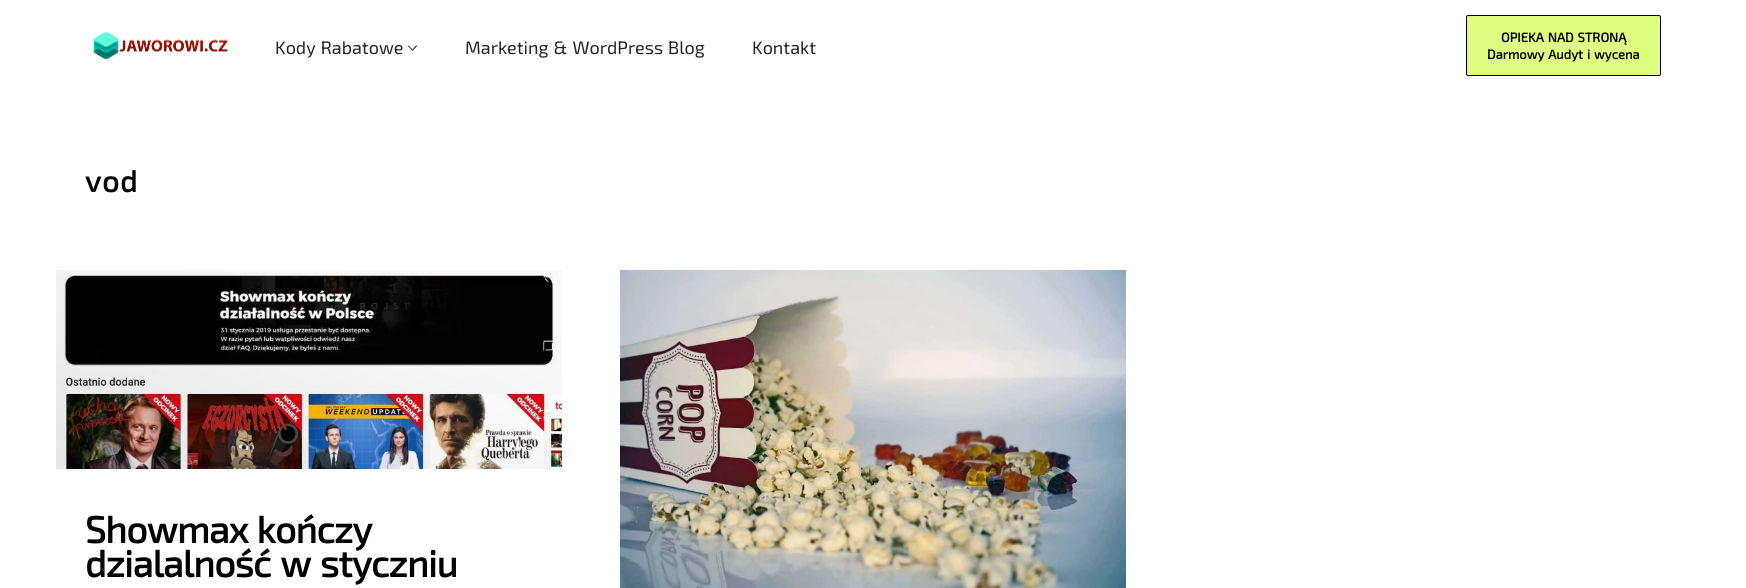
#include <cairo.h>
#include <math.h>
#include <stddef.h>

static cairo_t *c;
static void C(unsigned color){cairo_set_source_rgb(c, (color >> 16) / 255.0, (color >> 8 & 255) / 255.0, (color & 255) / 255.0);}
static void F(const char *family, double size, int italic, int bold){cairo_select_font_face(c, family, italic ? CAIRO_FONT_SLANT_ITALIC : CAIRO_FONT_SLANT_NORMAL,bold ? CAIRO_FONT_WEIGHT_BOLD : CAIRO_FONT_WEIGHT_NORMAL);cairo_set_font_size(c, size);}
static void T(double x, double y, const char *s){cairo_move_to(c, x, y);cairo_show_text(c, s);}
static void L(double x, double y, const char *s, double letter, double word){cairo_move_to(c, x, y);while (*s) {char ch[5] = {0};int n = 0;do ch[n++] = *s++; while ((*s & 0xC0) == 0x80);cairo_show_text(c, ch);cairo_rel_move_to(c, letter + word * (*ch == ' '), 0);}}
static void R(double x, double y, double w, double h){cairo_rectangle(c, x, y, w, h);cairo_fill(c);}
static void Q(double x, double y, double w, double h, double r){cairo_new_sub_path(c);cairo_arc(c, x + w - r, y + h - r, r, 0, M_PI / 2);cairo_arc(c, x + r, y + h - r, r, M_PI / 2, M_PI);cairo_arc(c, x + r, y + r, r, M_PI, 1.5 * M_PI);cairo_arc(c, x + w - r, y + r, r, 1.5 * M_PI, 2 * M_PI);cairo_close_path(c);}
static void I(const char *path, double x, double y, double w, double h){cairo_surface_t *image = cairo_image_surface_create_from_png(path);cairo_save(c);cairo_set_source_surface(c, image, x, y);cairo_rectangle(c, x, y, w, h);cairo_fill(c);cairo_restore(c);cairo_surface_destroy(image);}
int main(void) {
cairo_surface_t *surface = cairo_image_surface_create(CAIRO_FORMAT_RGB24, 1746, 588);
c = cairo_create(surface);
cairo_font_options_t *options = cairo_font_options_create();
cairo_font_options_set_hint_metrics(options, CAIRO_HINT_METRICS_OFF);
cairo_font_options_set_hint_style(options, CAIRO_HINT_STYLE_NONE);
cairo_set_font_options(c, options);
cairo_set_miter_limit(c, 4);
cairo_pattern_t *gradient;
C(0xffffff);
cairo_paint(c);
I("1.png",93,31,135,29);
F("Exo 2",18,0,0);
C(0x22262a);
L(275,54,"Kody Rabatowe",0,1);
cairo_new_path(c);
cairo_move_to(c,417.5,45.5);
cairo_line_to(c,412.5,51);
cairo_line_to(c,412.5,49.5);
cairo_line_to(c,416,45.5);
cairo_close_path(c);
cairo_fill(c);
cairo_new_path(c);
cairo_move_to(c,412.5,51);
cairo_line_to(c,407.5,45.5);
cairo_line_to(c,408.5,45.5);
cairo_line_to(c,412.5,49.5);
cairo_close_path(c);
cairo_fill(c);
L(465,54,"Marketing & WordPress Blog",0,1);
T(752,54,"Kontakt");
C(0xdffe81);
Q(1466.5,15.5,194,60,1.5);
cairo_fill_preserve(c);
C(0x000000);
cairo_set_line_width(c,1);
cairo_stroke(c);
F("Exo 2",13,0,1);
L(1501,42,"OPIEKA NAD STRONĄ",0,1);
L(1487,59,"Darmowy Audyt i wycena",0,1);
F("Exo 2",30,0,1);
L(85,192,"vod",1,0);
I("2.png",56,270,506,199);
gradient = cairo_pattern_create_linear(377,197,241,542);
cairo_pattern_add_color_stop_rgba(gradient,.2,0,0,0,0);
cairo_pattern_add_color_stop_rgba(gradient,1,0,0,0,.08);
cairo_set_source(c,gradient);
cairo_pattern_destroy(gradient);
R(56,270,506,199);
F("Exo 2",37.4,0,1);
C(0x000000);
L(85,543,"Showmax kończy",-.7,1);
L(85,577,"dzialalność w styczniu",-.7,2);
I("3.png",620,270,506,318);
cairo_surface_write_to_png(surface, "o.png");
cairo_font_options_destroy(options);
cairo_destroy(c);
cairo_surface_destroy(surface);
return 0;
}
